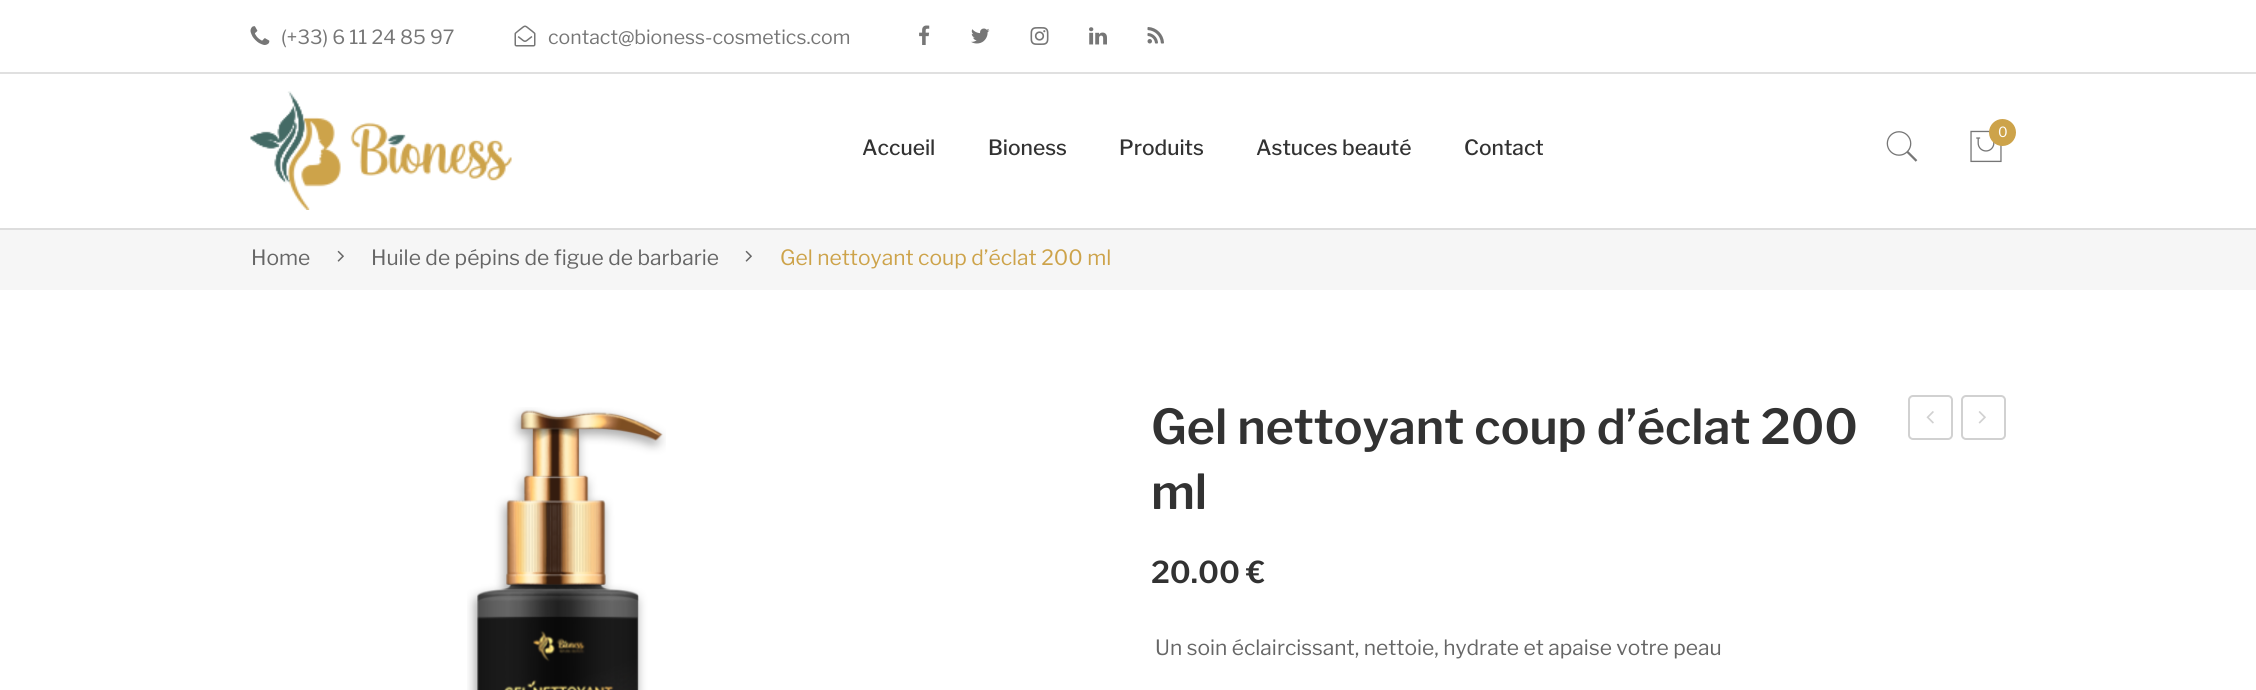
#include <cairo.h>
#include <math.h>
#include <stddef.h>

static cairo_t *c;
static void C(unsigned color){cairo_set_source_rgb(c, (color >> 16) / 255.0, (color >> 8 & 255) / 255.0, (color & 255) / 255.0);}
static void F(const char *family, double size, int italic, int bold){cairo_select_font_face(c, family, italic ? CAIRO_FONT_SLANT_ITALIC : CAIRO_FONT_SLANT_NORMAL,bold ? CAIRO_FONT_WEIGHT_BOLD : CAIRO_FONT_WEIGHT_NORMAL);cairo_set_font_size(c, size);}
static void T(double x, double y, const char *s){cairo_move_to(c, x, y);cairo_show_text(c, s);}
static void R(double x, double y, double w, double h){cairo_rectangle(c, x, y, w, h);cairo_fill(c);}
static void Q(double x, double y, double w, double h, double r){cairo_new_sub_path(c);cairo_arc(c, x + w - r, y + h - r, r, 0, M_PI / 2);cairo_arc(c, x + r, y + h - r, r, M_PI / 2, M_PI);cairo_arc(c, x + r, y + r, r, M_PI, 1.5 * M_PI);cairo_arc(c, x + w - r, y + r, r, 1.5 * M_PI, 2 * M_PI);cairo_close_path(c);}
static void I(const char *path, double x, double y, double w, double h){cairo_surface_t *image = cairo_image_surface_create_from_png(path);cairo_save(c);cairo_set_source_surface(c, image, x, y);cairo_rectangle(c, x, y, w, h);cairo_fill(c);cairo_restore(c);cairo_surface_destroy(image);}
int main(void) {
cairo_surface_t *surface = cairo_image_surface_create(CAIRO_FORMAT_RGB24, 2256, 690);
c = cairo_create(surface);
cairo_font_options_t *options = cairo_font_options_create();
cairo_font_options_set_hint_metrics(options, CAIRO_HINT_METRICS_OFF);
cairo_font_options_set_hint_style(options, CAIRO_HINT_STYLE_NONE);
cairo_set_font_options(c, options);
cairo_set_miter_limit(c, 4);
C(0xffffff);
cairo_paint(c);
C(0xe0e0e0);
R(0,72,2256,2);
I("1.png",250,26,20,19);
F("Libre Franklin",19.5,0,0);
C(0x767676);
T(281,44,"(+33) 6 11 24 85 97");
I("2.png",514,25,22,22);
T(548,44,"contact@bioness-cosmetics.com");
I("3.png",919,25,11,20);
I("4.png",971,28,19,16);
I("5.png",1030,27,19,18);
I("6.png",1089,27,18,18);
I("7.png",1147,27,17,17);
I("8.png",250,91,262,119);
I("9.png",1886,131,32,31);
I("10.png",1970,130,32,33);
C(0xcda34a);
cairo_arc(c,2002.5,132.5,13.5,0,2 * M_PI);
cairo_fill(c);
F("Libre Franklin",14,0,0);
C(0xffffff);
T(1998,137,"0");
F("Libre Franklin Medium",21,0,0);
C(0x323232);
T(862,155,"Accueil");
T(988,155,"Bioness");
T(1119,155,"Produits");
T(1256,155,"Astuces beauté");
T(1464,155,"Contact");
C(0xf6f6f6);
R(0,230,2256,60);
C(0xdddddd);
R(0,228,2256,2);
F("Libre Franklin",21,0,0);
C(0x666666);
T(251,265,"Home");
I("11.png",337,250,7,12);
T(371,265,"Huile de pépins de figue de barbarie");
I("11.png",745,250,7,12);
C(0xcda34a);
T(780,265,"Gel nettoyant coup d’éclat 200 ml");
I("12.png",467,407,199,283);
F("Libre Franklin SemiBold",48,0,0);
C(0x323232);
T(1151,444,"Gel nettoyant coup d’éclat 200");
T(1151,509,"ml");
Q(1909,396,43,43,4);
C(0xd1d1d1);
cairo_stroke(c);
I("13.png",1926,411,8,13);
Q(1962,396,43,43,4);
cairo_stroke(c);
I("14.png",1978,411,8,13);
F("Libre Franklin SemiBold",30,0,0);
C(0x323232);
T(1151,583,"20.00 €");
F("Libre Franklin",21,0,0);
C(0x666666);
T(1155,655,"Un soin éclaircissant, nettoie, hydrate et apaise votre peau");
cairo_surface_write_to_png(surface, "o.png");
cairo_font_options_destroy(options);
cairo_destroy(c);
cairo_surface_destroy(surface);
return 0;
}
